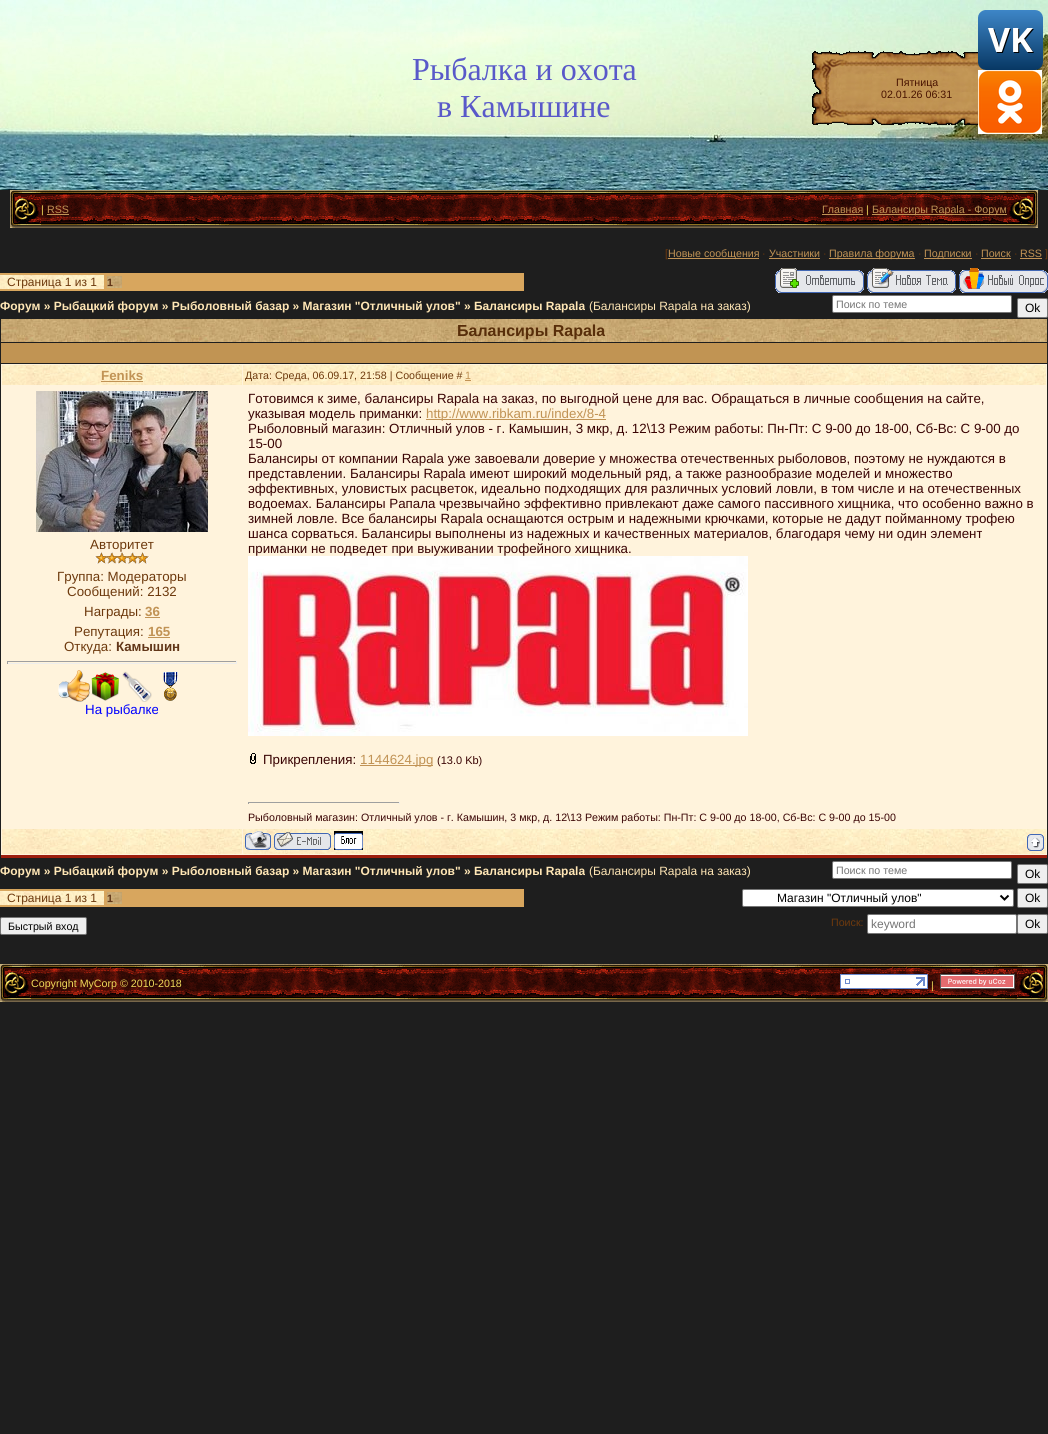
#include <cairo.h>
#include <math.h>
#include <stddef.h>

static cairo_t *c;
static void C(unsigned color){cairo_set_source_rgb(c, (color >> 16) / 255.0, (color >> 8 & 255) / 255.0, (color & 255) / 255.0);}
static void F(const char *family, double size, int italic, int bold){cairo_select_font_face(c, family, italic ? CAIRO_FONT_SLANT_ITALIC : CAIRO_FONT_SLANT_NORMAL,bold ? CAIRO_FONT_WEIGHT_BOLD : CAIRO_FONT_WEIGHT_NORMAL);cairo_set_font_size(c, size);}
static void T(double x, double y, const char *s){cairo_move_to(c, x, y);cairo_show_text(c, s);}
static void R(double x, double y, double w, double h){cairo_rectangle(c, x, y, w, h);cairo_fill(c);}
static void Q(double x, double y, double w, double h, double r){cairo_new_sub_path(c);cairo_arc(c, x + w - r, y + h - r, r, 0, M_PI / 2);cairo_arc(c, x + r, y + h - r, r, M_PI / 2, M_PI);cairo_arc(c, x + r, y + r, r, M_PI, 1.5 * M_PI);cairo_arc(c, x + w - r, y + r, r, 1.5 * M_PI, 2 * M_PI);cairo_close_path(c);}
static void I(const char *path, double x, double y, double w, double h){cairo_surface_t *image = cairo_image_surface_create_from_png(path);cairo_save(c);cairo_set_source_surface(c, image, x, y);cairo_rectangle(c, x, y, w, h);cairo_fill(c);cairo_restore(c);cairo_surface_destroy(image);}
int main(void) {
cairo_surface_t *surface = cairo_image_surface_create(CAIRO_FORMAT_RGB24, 1048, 1434);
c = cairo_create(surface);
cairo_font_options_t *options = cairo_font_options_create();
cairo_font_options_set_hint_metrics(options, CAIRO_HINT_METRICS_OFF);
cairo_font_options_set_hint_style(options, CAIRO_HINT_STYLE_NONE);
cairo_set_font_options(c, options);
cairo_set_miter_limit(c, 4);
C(0x1e1e1e);
cairo_paint(c);
I("1.png",0,0,1048,190);
F("Liberation Serif",32,0,0);
C(0x5959c9);
T(412,80,"Рыбалка и охота");
T(437,117,"в Камышине");
I("2.png",812,51,174,74);
F("Liberation Sans",10.67,0,0);
C(0x491300);
T(896,86,"Пятница");
T(881,98,"02.01.26 06:31");
I("3.png",978,10,65,60);
I("4.png",978,70,64,64);
I("5.png",41,190,966,38);
I("6.png",10,190,31,38);
C(0xefd959);
T(41,213,"|");
C(0xc19355);
T(47,213,"RSS");
R(47,214,22,1);
T(822,213,"Главная");
R(822,214,41,1);
C(0xefd959);
T(866,213,"|");
C(0xc19355);
R(872,214,135,1);
T(872,213,"Балансиры Rapala - Форум");
I("7.png",1007,190,31,38);
C(0x6d390d);
T(665,257,"[");
C(0xc19355);
R(668,258,91,1);
T(668,257,"Новые сообщения");
C(0x6d390d);
T(762,257,"·");
C(0xc19355);
T(769,257,"Участники");
R(769,258,51,1);
C(0x6d390d);
T(823,257,"·");
C(0xc19355);
R(829,258,86,1);
T(829,257,"Правила форума");
C(0x6d390d);
T(918,257,"·");
C(0xc19355);
R(924,258,48,1);
T(924,257,"Подписки");
C(0x6d390d);
T(975,257,"·");
C(0xc19355);
T(981,257,"Поиск");
R(981,258,30,1);
C(0x6d390d);
T(1014,257,"·");
C(0xc19355);
T(1020,257,"RSS");
R(1020,258,22,1);
C(0x6d390d);
T(1045,257,"]");
C(0xd8a65e);
R(0,273,524,18);
I("8.png",0,275,104,14);
F("Liberation Sans",12,0,0);
C(0x6d390d);
T(7,286,"Страница 1 из 1");
I("9.png",107,276,15,12);
F("Liberation Sans",10.67,0,1);
C(0x613618);
T(107,286,"1");
I("10.png",775,268,89,25);
I("11.png",867,268,89,25);
I("12.png",959,268,89,25);
F("Liberation Sans",12,0,1);
C(0xffe6b5);
T(0,310,"Форум » Рыбацкий форум » Рыболовный базар » Магазин \"Отличный улов\" » Балансиры Rapala");
F("Liberation Sans",12,0,0);
T(589,310,"(Балансиры Rapala на заказ)");
C(0xffffff);
Q(832.5,295.5,179,17,1.5);
cairo_fill_preserve(c);
C(0x767676);
cairo_set_line_width(c,1);
cairo_stroke(c);
F("Liberation Sans",10.67,0,0);
C(0x757575);
T(836,308,"Поиск по теме");
C(0xefefef);
Q(1017.5,298.5,30,19,1.5);
cairo_fill_preserve(c);
C(0x767676);
cairo_stroke(c);
F("Liberation Sans",12,0,0);
C(0x000000);
T(1025,312,"Ok");
I("13.png",1,319,1046,23);
F("Liberation Sans",16,0,1);
C(0x582e0a);
T(457,336,"Балансиры Rapala");
C(0xc19453);
R(1,343,1046,20);
C(0xfff3dc);
R(1,364,1046,491);
C(0x9d1e0d);
R(1,855,1046,3);
I("14.png",2,365,240,20);
F("Liberation Sans",13.33,0,1);
C(0xc19355);
T(101,380,"Feniks");
R(101,381,42,1);
I("15.png",243,365,803,20);
F("Liberation Sans",10.67,0,0);
C(0x6d390d);
T(245,379,"Дата: Среда, 06.09.17, 21:58 | Сообщение #");
C(0xc19355);
T(465,379,"1");
R(465,380,6,1);
I("16.png",36,391,172,141);
F("Liberation Sans",13.33,0,0);
C(0x6d390d);
T(90,549,"Авторитет");
I("17.png",94,552,56,12);
T(57,581,"Группа: Модераторы");
T(67,596,"Сообщений: 2132");
T(84,616,"Награды:");
F("Liberation Sans",13.33,0,1);
C(0xc19355);
T(145,616,"36");
R(145,617,15,1);
F("Liberation Sans",13.33,0,0);
C(0x6d390d);
T(74,636,"Репутация:");
F("Liberation Sans",13.33,0,1);
C(0xc19355);
T(148,636,"165");
R(148,637,22,1);
F("Liberation Sans",13.33,0,0);
C(0x6d390d);
T(64,651,"Откуда:");
F("Liberation Sans",13.33,0,1);
C(0x613618);
T(116,651,"Камышин");
C(0x9f9f9f);
R(7,661,230,1);
C(0xeeeeee);
R(236,661,1,3);
R(7,663,230,1);
C(0x9f9f9f);
R(7,661,1,3);
I("18.png",58,670,32,32);
I("19.png",91,672,28,29);
I("20.png",122,671,30,31);
I("21.png",163,672,15,29);
F("Liberation Sans",13.33,0,0);
C(0x0000ff);
T(85,714,"На рыбалке");
C(0x390303);
T(248,403,"Готовимся к зиме, балансиры Rapala на заказ, по выгодной цене для вас. Обращаться в личные сообщения на сайте,");
T(248,418,"указывая модель приманки:");
C(0xc19355);
R(426,419,180,1);
T(426,418,"http://www.ribkam.ru/index/8-4");
C(0x390303);
T(248,433,"Рыболовный магазин: Отличный улов - г. Камышин, 3 мкр, д. 12\\13 Режим работы: Пн-Пт: С 9-00 до 18-00, Сб-Вс: С 9-00 до");
T(248,448,"15-00");
T(248,463,"Балансиры от компании Rapala уже завоевали доверие у множества отечественных рыболовов, поэтому не нуждаются в");
T(248,478,"представлении. Балансиры Rapala имеют широкий модельный ряд, а также разнообразие моделей и множество");
T(248,493,"эффективных, уловистых расцветок, идеально подходящих для различных условий ловли, в том числе и на отечественных");
T(248,508,"водоемах. Балансиры Рапала чрезвычайно эффективно привлекают даже самого пассивного хищника, что особенно важно в");
T(248,523,"зимней ловле. Все балансиры Rapala оснащаются острым и надежными крючками, которые не дадут пойманному трофею");
T(248,538,"шанса сорваться. Балансиры выполнены из надежных и качественных материалов, благодаря чему ни один элемент");
T(248,553,"приманки не подведет при выуживании трофейного хищника.");
I("22.png",248,556,500,180);
I("23.png",250,753,6,11);
T(263,764,"Прикрепления:");
C(0xc19355);
R(360,765,73,1);
T(360,764,"1144624.jpg");
F("Liberation Sans",11,0,0);
C(0x390303);
T(437,764,"(13.0 Kb)");
C(0x9f9f9f);
R(248,802,152,1);
C(0xeeeeee);
R(399,802,1,2);
C(0x9f9f9f);
R(248,802,1,2);
F("Liberation Sans",10.67,0,0);
C(0x390303);
T(248,821,"Рыболовный магазин: Отличный улов - г. Камышин, 3 мкр, д. 12\\13 Режим работы: Пн-Пт: С 9-00 до 18-00, Сб-Вс: С 9-00 до 15-00");
I("24.png",2,829,240,25);
I("25.png",243,829,803,25);
I("26.png",245,831,26,19);
I("27.png",274,832,57,18);
I("28.png",334,831,29,19);
I("29.png",1027,834,17,17);
F("Liberation Sans",12,0,1);
C(0xffe6b5);
T(0,875,"Форум » Рыбацкий форум » Рыболовный базар » Магазин \"Отличный улов\" » Балансиры Rapala");
F("Liberation Sans",12,0,0);
T(589,875,"(Балансиры Rapala на заказ)");
C(0xffffff);
Q(832.5,861.5,179,17,1.5);
cairo_fill_preserve(c);
C(0x767676);
cairo_stroke(c);
F("Liberation Sans",10.67,0,0);
C(0x757575);
T(836,874,"Поиск по теме");
C(0xefefef);
Q(1017.5,864.5,30,19,1.5);
cairo_fill_preserve(c);
C(0x767676);
cairo_stroke(c);
F("Liberation Sans",12,0,0);
C(0x000000);
T(1025,878,"Ok");
C(0xd8a65e);
R(0,889,524,18);
I("8.png",0,891,104,14);
C(0x6d390d);
T(7,902,"Страница 1 из 1");
I("9.png",107,892,15,12);
F("Liberation Sans",10.67,0,1);
C(0x613618);
T(107,902,"1");
C(0xffffff);
Q(742.5,889.5,271,17,1.5);
cairo_fill_preserve(c);
C(0x767676);
cairo_stroke(c);
cairo_new_path(c);
cairo_move_to(c,1000.5,895.5);
cairo_line_to(c,1004.5,899.5);
cairo_line_to(c,1008.5,895.5);
C(0x000000);
cairo_set_line_width(c,2);
cairo_stroke(c);
F("Liberation Sans",12,0,0);
T(777,902,"Магазин \"Отличный улов\"");
C(0xefefef);
Q(1017.5,888.5,30,19,1.5);
cairo_fill_preserve(c);
C(0x767676);
cairo_set_line_width(c,1);
cairo_stroke(c);
C(0x000000);
T(1025,902,"Ok");
C(0xefefef);
Q(.5,917.5,86,17,1.5);
cairo_fill_preserve(c);
C(0x767676);
cairo_stroke(c);
F("Liberation Sans",10.67,0,0);
C(0x000000);
T(8,930,"Быстрый вход");
C(0x6d390d);
T(831,926,"Поиск:");
C(0xffffff);
Q(867.5,914.5,149,19,1.5);
cairo_fill_preserve(c);
C(0x767676);
cairo_stroke(c);
F("Liberation Sans",12,0,0);
C(0x757575);
T(871,928,"keyword");
C(0xefefef);
Q(1017.5,914.5,30,19,1.5);
cairo_fill_preserve(c);
C(0x767676);
cairo_stroke(c);
C(0x000000);
T(1025,928,"Ok");
I("30.png",31,964,986,38);
I("6.png",0,964,31,38);
F("Liberation Sans",10.67,0,0);
C(0xefd959);
T(31,987,"Copyright MyCorp © 2010-2018");
I("31.png",840,974,88,15);
T(931,989,"|");
I("32.png",940,974,75,15);
I("7.png",1017,964,31,38);
cairo_surface_write_to_png(surface, "o.png");
cairo_font_options_destroy(options);
cairo_destroy(c);
cairo_surface_destroy(surface);
return 0;
}
